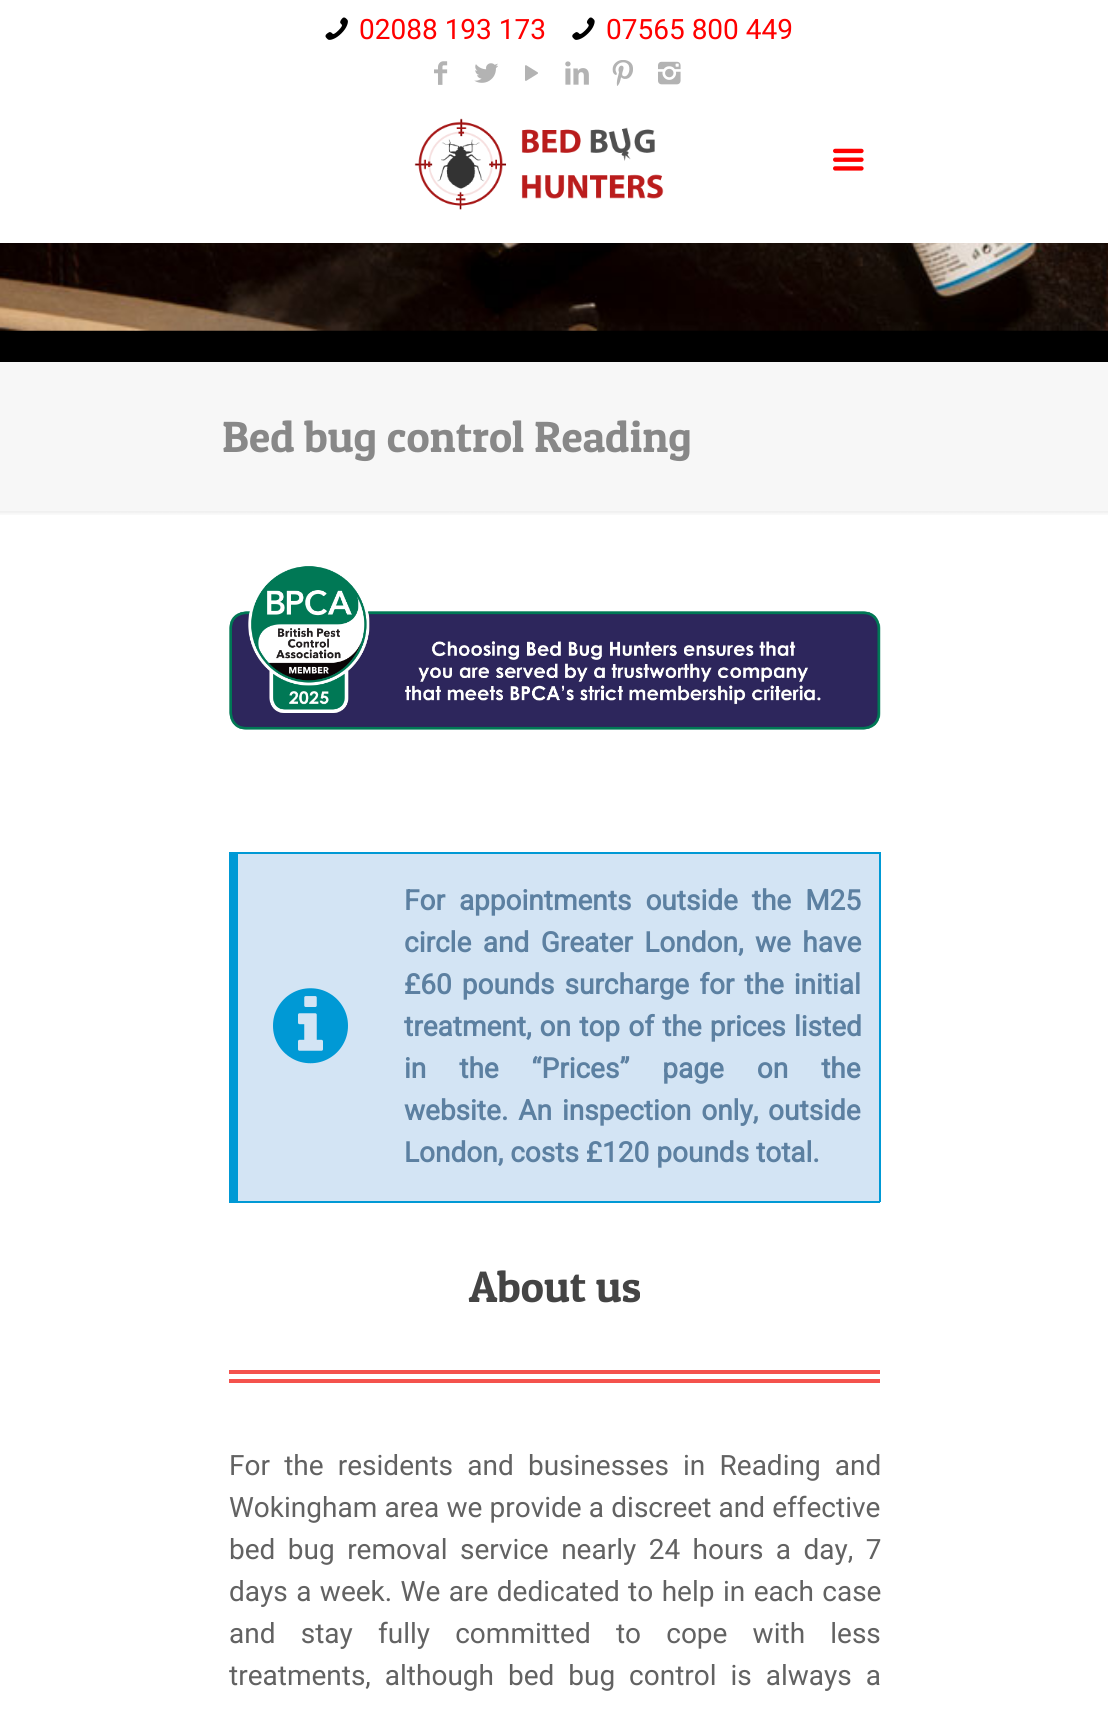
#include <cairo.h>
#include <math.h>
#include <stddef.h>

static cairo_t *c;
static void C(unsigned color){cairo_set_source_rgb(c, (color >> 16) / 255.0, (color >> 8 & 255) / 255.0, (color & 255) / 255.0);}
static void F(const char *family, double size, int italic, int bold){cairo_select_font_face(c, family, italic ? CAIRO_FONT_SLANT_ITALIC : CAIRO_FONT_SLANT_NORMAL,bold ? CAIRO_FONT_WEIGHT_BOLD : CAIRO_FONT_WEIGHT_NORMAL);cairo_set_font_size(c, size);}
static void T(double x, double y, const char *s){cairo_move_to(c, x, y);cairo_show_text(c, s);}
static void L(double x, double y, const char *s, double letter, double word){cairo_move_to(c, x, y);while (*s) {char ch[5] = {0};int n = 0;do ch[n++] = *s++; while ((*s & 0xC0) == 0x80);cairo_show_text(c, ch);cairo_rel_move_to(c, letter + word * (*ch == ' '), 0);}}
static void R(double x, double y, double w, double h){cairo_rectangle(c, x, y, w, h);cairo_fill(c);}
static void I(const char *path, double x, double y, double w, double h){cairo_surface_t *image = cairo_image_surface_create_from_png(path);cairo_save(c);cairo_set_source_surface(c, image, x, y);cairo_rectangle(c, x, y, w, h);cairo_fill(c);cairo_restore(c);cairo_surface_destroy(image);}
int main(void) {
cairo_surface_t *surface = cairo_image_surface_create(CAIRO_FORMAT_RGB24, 1108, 1718);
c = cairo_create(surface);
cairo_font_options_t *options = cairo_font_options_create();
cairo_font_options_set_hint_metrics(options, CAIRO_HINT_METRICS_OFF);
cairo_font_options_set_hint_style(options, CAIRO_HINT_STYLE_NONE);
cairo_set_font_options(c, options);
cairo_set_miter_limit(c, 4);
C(0xffffff);
cairo_paint(c);
C(0x000000);
R(0,330,1108,32);
I("1.png",0,243,1108,88);
I("2.png",325,17,23,23);
F("Roboto",28,0,0);
C(0xff0000);
T(359,39,"02088 193 173");
I("3.png",572,17,23,23);
T(606,39,"07565 800 449");
I("4.png",434,61,14,24);
I("5.png",474,63,24,20);
I("6.png",525,65,13,16);
I("7.png",565,61,24,24);
I("8.png",612,60,21,26);
I("9.png",658,61,23,24);
I("10.png",414,118,250,92);
I("11.png",833,148,31,23);
C(0xf7f7f7);
R(0,362,1108,149);
F("Patua One",43.75,0,0);
C(0x888888);
T(222,452,"Bed bug control Reading");
I("12.png",0,511,1108,4);
I("13.png",229,566,652,164);
C(0xd3e4f4);
R(238,854,641,347);
C(0x0099d5);
R(238,852,642,2);
R(879,852,2,350);
R(229,1201,651,2);
R(229,852,9,349);
I("14.png",273,988,75,76);
F("Roboto",28,0,1);
C(0x5c80a1);
L(404,910,"For appointments outside the M25",0,7);
L(404,952,"circle and Greater London, we have",0,4.5);
L(404,994,"£60 pounds surcharge for the initial",0,3);
L(404,1036,"treatment, on top of the prices listed",0,1.25);
L(404,1078,"in the “Prices” page on the",0,26);
L(404,1120,"website. An inspection only, outside",0,3);
T(404,1162,"London, costs £120 pounds total.");
F("Patua One",43.75,0,0);
C(0x444444);
T(469,1302,"About us");
C(0xf4524d);
R(229,1370,651,4);
R(229,1379,651,4);
F("Roboto",28,0,0);
C(0x626262);
L(229,1475,"For the residents and businesses in Reading and",0,7.25);
L(229,1517,"Wokingham area we provide a discreet and effective",0,.25);
L(229,1559,"bed bug removal service nearly 24 hours a day, 7",0,5.5);
L(229,1601,"days a week. We are dedicated to help in each case",0,1.5);
L(229,1643,"and stay fully committed to cope with less",0,18.25);
L(229,1685,"treatments, although bed bug control is always a",0,7);
cairo_surface_write_to_png(surface, "o.png");
cairo_font_options_destroy(options);
cairo_destroy(c);
cairo_surface_destroy(surface);
return 0;
}
